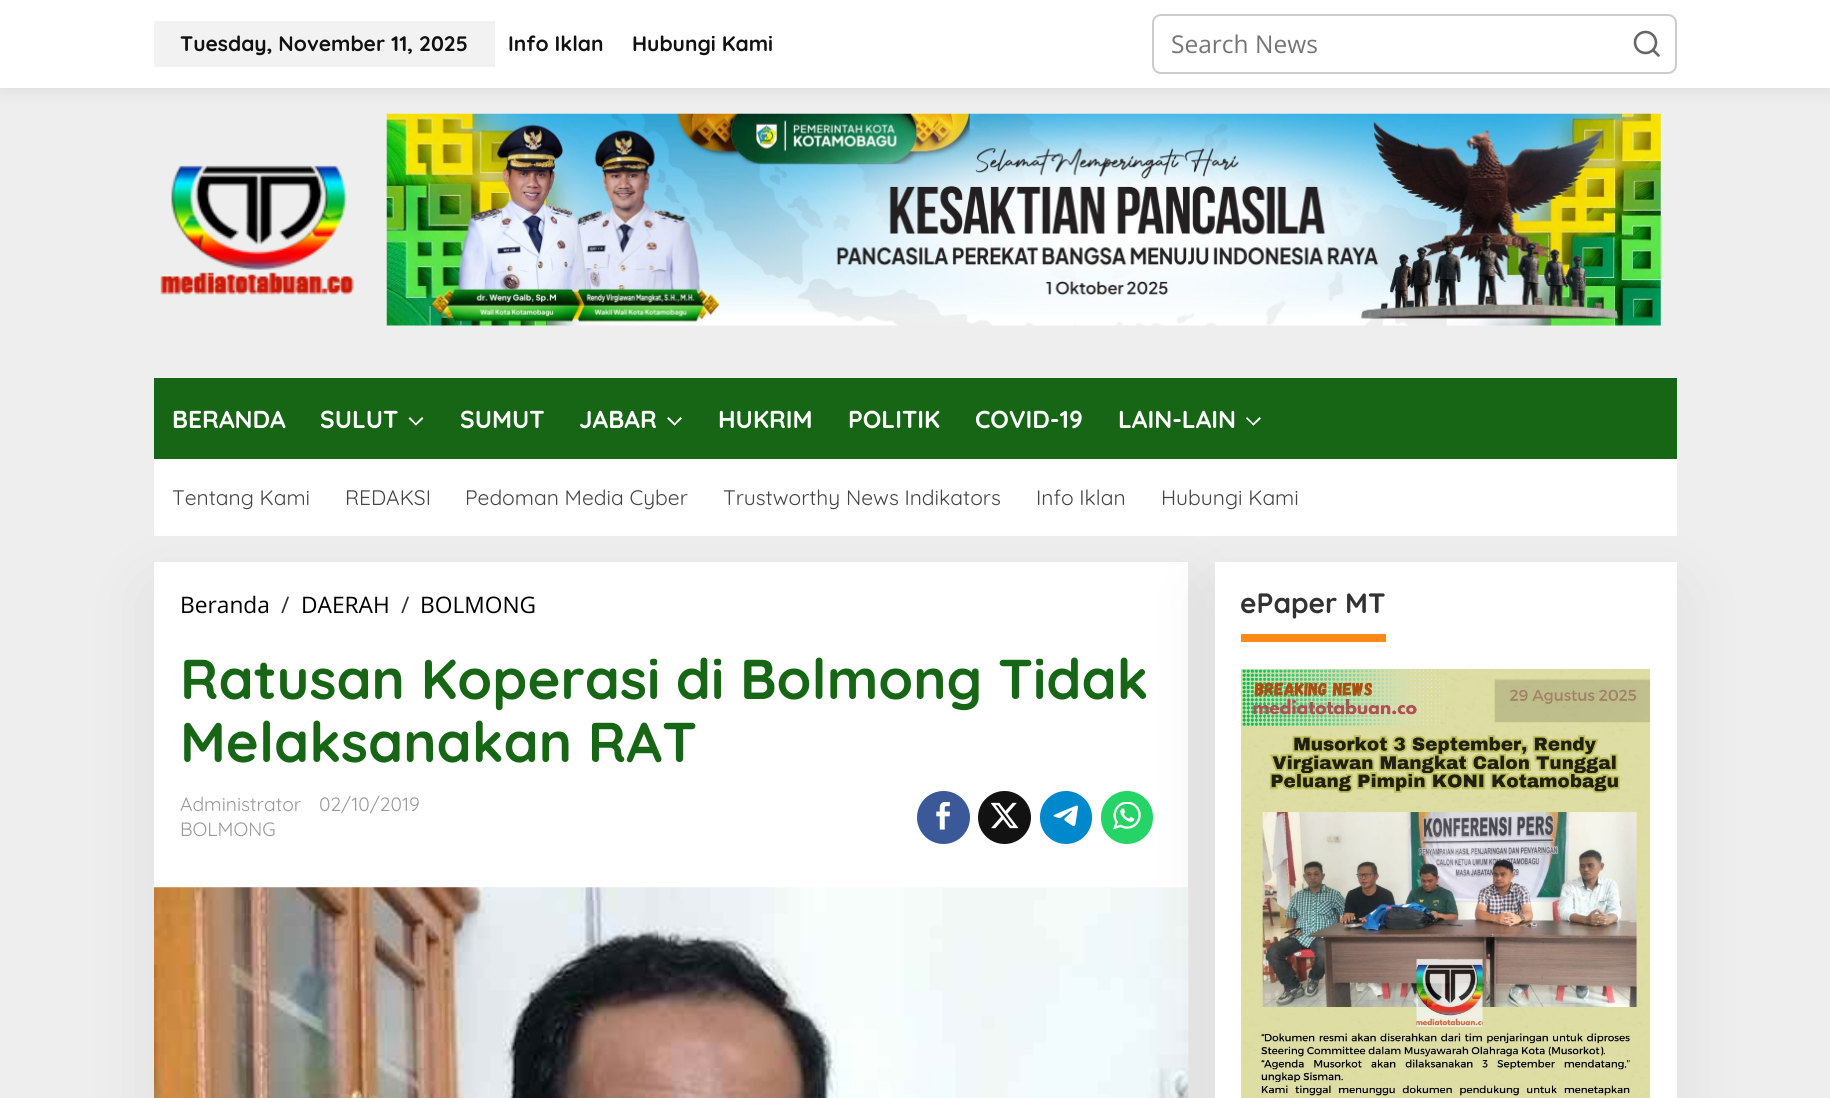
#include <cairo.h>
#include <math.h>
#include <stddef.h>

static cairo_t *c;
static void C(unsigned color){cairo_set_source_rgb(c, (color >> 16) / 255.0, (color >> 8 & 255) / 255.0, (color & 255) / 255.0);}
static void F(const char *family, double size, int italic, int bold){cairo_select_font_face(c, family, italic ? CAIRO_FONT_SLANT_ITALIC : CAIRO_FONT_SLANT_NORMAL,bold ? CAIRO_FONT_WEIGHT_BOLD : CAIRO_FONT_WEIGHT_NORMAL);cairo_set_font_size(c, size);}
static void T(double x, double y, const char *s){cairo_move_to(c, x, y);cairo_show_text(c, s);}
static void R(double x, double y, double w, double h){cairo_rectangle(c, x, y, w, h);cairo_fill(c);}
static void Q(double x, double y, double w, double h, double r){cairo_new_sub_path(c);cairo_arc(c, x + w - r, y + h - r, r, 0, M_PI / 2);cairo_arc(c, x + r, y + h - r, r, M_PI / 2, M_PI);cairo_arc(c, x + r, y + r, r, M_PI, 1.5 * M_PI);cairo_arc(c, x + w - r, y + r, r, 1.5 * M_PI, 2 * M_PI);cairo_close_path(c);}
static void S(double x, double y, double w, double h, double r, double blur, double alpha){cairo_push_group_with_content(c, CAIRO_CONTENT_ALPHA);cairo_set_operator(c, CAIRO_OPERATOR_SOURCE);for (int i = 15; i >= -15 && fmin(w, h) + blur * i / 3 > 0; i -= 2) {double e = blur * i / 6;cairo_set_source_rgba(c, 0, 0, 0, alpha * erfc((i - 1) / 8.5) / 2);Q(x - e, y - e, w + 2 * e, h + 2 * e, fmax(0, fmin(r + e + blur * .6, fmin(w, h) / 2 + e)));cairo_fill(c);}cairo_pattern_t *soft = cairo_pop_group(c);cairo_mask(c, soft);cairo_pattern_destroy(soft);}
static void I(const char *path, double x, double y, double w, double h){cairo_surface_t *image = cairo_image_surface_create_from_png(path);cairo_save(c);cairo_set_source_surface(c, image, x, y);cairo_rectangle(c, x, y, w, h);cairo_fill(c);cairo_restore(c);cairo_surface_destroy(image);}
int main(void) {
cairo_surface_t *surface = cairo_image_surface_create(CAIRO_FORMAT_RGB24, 1830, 1098);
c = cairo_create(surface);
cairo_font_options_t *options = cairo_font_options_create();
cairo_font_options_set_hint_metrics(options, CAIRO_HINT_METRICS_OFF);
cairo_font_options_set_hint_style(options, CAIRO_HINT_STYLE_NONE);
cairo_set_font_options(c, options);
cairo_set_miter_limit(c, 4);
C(0xeeeeee);
cairo_paint(c);
I("2.png",386,113,1275,213);
C(0x000000);
S(0,0,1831,88,0,9,.1);
C(0xffffff);
R(0,0,1830,88);
C(0xf2f2f2);
R(154,21,341,46);
F("Quicksand",21,0,1);
C(0x111111);
T(180,51,"Tuesday, November 11, 2025");
T(508,51,"Info Iklan");
T(632,51,"Hubungi Kami");
Q(1153,15,523,58,8);
C(0xcccccc);
cairo_stroke(c);
F("Open Sans",24.5,0,0);
C(0x757575);
T(1171,53,"Search News");
cairo_new_path(c);
cairo_arc(c,1645.5,42.5,10.5,0,2 * M_PI);
C(0x666666);
cairo_set_line_width(c,2.6);
cairo_stroke(c);
cairo_new_path(c);
cairo_move_to(c,1658.5,55.5);
cairo_line_to(c,1653,50);
cairo_set_line_cap(c,CAIRO_LINE_CAP_ROUND);
cairo_set_line_join(c,CAIRO_LINE_JOIN_ROUND);
cairo_stroke(c);
I("1.png",160,165,194,130);
C(0x176616);
R(154,378,1523,81);
F("Quicksand",24.5,0,1);
C(0xffffff);
T(172,428,"BERANDA");
T(320,428,"SULUT");
cairo_new_path(c);
cairo_move_to(c,422,417);
cairo_line_to(c,423.5,418.5);
cairo_line_to(c,416,425.5);
cairo_line_to(c,414.5,424.5);
cairo_close_path(c);
cairo_fill(c);
cairo_new_path(c);
cairo_move_to(c,410,417);
cairo_line_to(c,417,424.5);
cairo_line_to(c,416,425.5);
cairo_line_to(c,408.5,418.5);
cairo_close_path(c);
cairo_fill(c);
T(460,428,"SUMUT");
T(579,428,"JABAR");
cairo_new_path(c);
cairo_move_to(c,680.5,417);
cairo_line_to(c,682,418.5);
cairo_line_to(c,674.5,425.5);
cairo_line_to(c,673.5,424.5);
cairo_close_path(c);
cairo_fill(c);
cairo_new_path(c);
cairo_move_to(c,668.5,417);
cairo_line_to(c,676,424.5);
cairo_line_to(c,674.5,425.5);
cairo_line_to(c,667,418.5);
cairo_close_path(c);
cairo_fill(c);
T(718,428,"HUKRIM");
T(848,428,"POLITIK");
T(975,428,"COVID-19");
T(1118,428,"LAIN-LAIN");
cairo_new_path(c);
cairo_move_to(c,1259.5,417);
cairo_line_to(c,1261,418.5);
cairo_line_to(c,1253.5,425.5);
cairo_line_to(c,1252,424.5);
cairo_close_path(c);
cairo_fill(c);
cairo_new_path(c);
cairo_move_to(c,1247,417);
cairo_line_to(c,1254.5,424.5);
cairo_line_to(c,1253.5,425.5);
cairo_line_to(c,1246,418.5);
cairo_close_path(c);
cairo_fill(c);
R(154,459,1523,77);
F("Quicksand",21,0,0);
C(0x444444);
T(172,505,"Tentang Kami");
T(345,505,"REDAKSI");
T(465,505,"Pedoman Media Cyber");
T(723,505,"Trustworthy News Indikators");
T(1036,505,"Info Iklan");
T(1161,505,"Hubungi Kami");
C(0x000000);
S(154,590,1034,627,0,39.5,.07);
C(0xffffff);
R(154,562,1034,326);
F("Open Sans",22.75,0,0);
C(0x000000);
T(180,613,"Beranda");
C(0x323233);
T(281,613,"/");
C(0x000000);
T(301,613,"DAERAH");
C(0x323233);
T(401,613,"/");
C(0x000000);
T(420,613,"BOLMONG");
F("Quicksand",56,0,1);
C(0x176616);
T(180,699,"Ratusan Koperasi di Bolmong Tidak");
T(180,762,"Melaksanakan RAT");
F("Quicksand",19.25,0,0);
C(0x999999);
T(180,811,"Administrator");
T(319,811,"02/10/2019");
T(180,836,"BOLMONG");
C(0x3b5998);
cairo_new_path(c);
cairo_arc(c,943.5,817.5,26.5,0,2 * M_PI);
cairo_fill(c);
I("3.png",936,802,14,28);
C(0x121212);
cairo_arc(c,1004.5,817.5,26.5,0,2 * M_PI);
cairo_fill(c);
I("4.png",991,802,28,27);
C(0x0088cc);
Q(1040,791,52,53,26);
cairo_fill(c);
I("5.png",1053,805,25,21);
C(0x25d366);
Q(1101,791,52,53,26);
cairo_fill(c);
I("6.png",1113,802,28,28);
I("7.png",154,887,1035,211);
C(0x000000);
S(1215,590,462,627,0,39.5,.07);
C(0xffffff);
R(1215,562,462,536);
C(0xfe8917);
R(1241,634,145,8);
F("Quicksand",28,0,1);
C(0x323233);
T(1240,613,"ePaper MT");
I("8.png",1240,669,411,429);
cairo_surface_write_to_png(surface, "o.png");
cairo_font_options_destroy(options);
cairo_destroy(c);
cairo_surface_destroy(surface);
return 0;
}
